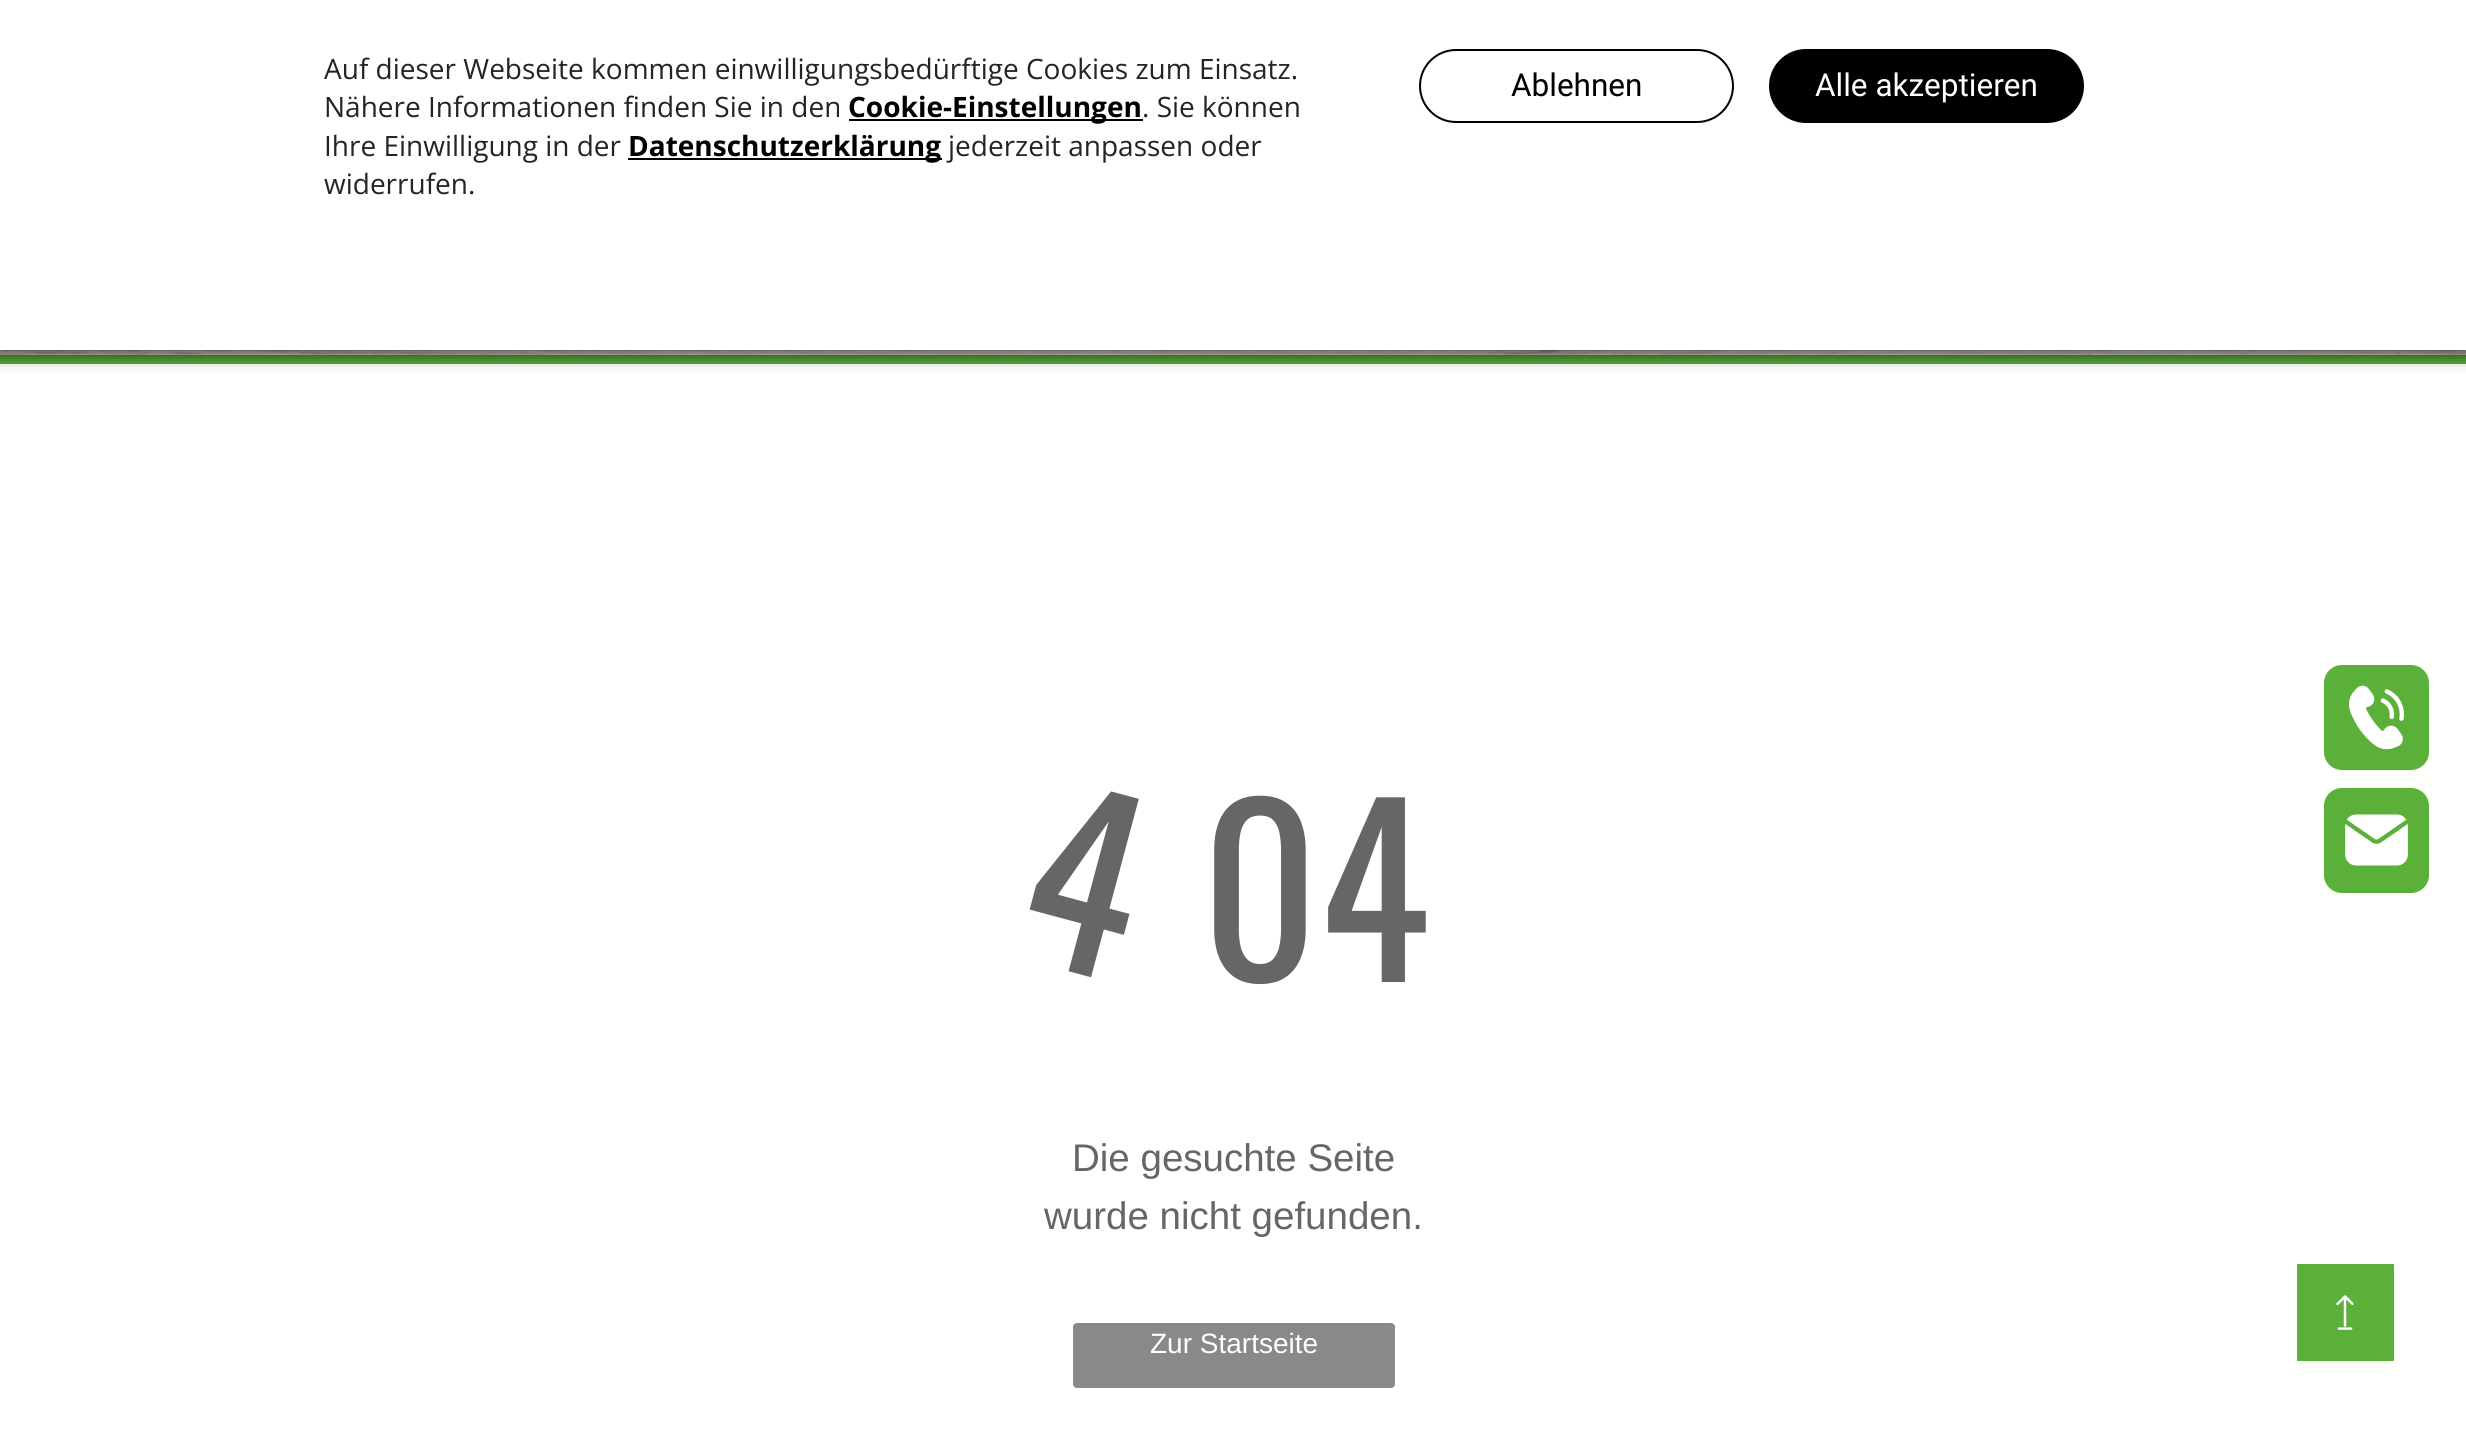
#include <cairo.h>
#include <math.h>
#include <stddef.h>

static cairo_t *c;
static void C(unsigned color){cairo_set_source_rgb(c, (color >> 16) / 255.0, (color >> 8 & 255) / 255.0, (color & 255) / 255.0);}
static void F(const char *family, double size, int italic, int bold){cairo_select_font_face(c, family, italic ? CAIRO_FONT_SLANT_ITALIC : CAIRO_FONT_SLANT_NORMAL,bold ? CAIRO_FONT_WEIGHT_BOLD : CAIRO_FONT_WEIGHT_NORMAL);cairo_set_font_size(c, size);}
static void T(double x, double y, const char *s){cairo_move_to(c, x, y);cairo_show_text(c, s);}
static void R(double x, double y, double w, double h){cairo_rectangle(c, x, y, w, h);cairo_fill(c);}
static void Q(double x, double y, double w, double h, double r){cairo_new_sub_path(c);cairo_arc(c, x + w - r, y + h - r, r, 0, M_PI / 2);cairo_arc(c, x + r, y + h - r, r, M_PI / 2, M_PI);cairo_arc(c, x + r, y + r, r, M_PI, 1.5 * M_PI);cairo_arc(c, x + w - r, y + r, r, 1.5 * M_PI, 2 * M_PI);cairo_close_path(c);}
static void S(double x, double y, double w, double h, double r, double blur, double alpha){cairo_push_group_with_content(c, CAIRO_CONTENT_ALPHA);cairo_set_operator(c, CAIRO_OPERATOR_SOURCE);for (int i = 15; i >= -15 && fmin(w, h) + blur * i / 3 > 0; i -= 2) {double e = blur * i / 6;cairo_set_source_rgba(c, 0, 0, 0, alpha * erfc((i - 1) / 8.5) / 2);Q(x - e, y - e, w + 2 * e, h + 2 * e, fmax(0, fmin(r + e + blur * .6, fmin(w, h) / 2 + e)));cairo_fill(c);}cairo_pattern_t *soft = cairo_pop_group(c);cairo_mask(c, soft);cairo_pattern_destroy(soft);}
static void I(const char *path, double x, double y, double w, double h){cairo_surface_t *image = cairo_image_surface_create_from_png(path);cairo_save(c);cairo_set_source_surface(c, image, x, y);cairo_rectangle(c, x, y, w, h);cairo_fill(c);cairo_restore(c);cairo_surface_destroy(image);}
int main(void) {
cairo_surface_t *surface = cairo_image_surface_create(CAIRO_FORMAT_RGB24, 2466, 1435);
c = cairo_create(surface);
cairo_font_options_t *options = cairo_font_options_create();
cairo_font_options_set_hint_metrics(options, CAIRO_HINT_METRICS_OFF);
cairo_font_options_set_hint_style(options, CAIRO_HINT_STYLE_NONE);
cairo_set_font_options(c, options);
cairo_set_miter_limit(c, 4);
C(0xfffffe);
cairo_paint(c);
C(0x5bb039);
R(0,355,2466,9);
I("1.png",0,350,2466,5);
cairo_set_source_rgba(c,1,1,1,0.65);
R(0,350,2466,5);
C(0x000000);
S(-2,2,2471,353,0,8,.75);
C(0xffffff);
R(0,0,2466,350);
F("Open Sans",28,0,0);
C(0x242424);
T(324,79,"Auf dieser Webseite kommen einwilligungsbedürftige Cookies zum Einsatz.");
T(324,117,"Nähere Informationen finden Sie in den");
C(0x000000);
R(849,119,294,2);
F("Open Sans",28,0,1);
T(848,117,"Cookie-Einstellungen");
F("Open Sans",28,0,0);
C(0x242424);
T(1142,117,". Sie können");
T(324,156,"Ihre Einwilligung in der");
C(0x000000);
R(628,158,314,2);
F("Open Sans",28,0,1);
T(628,156,"Datenschutzerklärung");
F("Open Sans",28,0,0);
C(0x242424);
T(948,156,"jederzeit anpassen oder");
T(324,194,"widerrufen.");
Q(1420,50,313,72,36);
C(0x000000);
cairo_stroke(c);
F("Roboto",31.5,0,0);
T(1511,96,"Ablehnen");
Q(1770,50,313,72,36);
cairo_fill_preserve(c);
cairo_stroke(c);
C(0xffffff);
T(1815,96,"Alle akzeptieren");
F("Oswald",228,0,0);
C(0x666666);
cairo_save(c);
cairo_translate(c,1008,955);
cairo_rotate(c,15 * M_PI / 180);
T(0,0,"4");
cairo_restore(c);
T(1201,982,"04");
F("Liberation Sans",38.5,0,0);
T(1072,1171,"Die gesuchte Seite");
T(1044,1229,"wurde nicht gefunden.");
C(0x898989);
Q(1073,1323,322,65,4);
cairo_fill(c);
F("Liberation Sans",28,0,0);
C(0xffffff);
T(1150,1353,"Zur Startseite");
C(0x5bb039);
Q(2324,665,105,105,18);
cairo_fill(c);
I("2.png",2348,685,57,65);
Q(2324,788,105,105,18);
cairo_fill(c);
I("3.png",2345,814,63,52);
Q(2295,1262,101,101,3);
cairo_fill_preserve(c);
C(0xffffff);
cairo_set_line_width(c,4);
cairo_stroke(c);
I("4.png",2336,1295,18,35);
cairo_surface_write_to_png(surface, "o.png");
cairo_font_options_destroy(options);
cairo_destroy(c);
cairo_surface_destroy(surface);
return 0;
}
